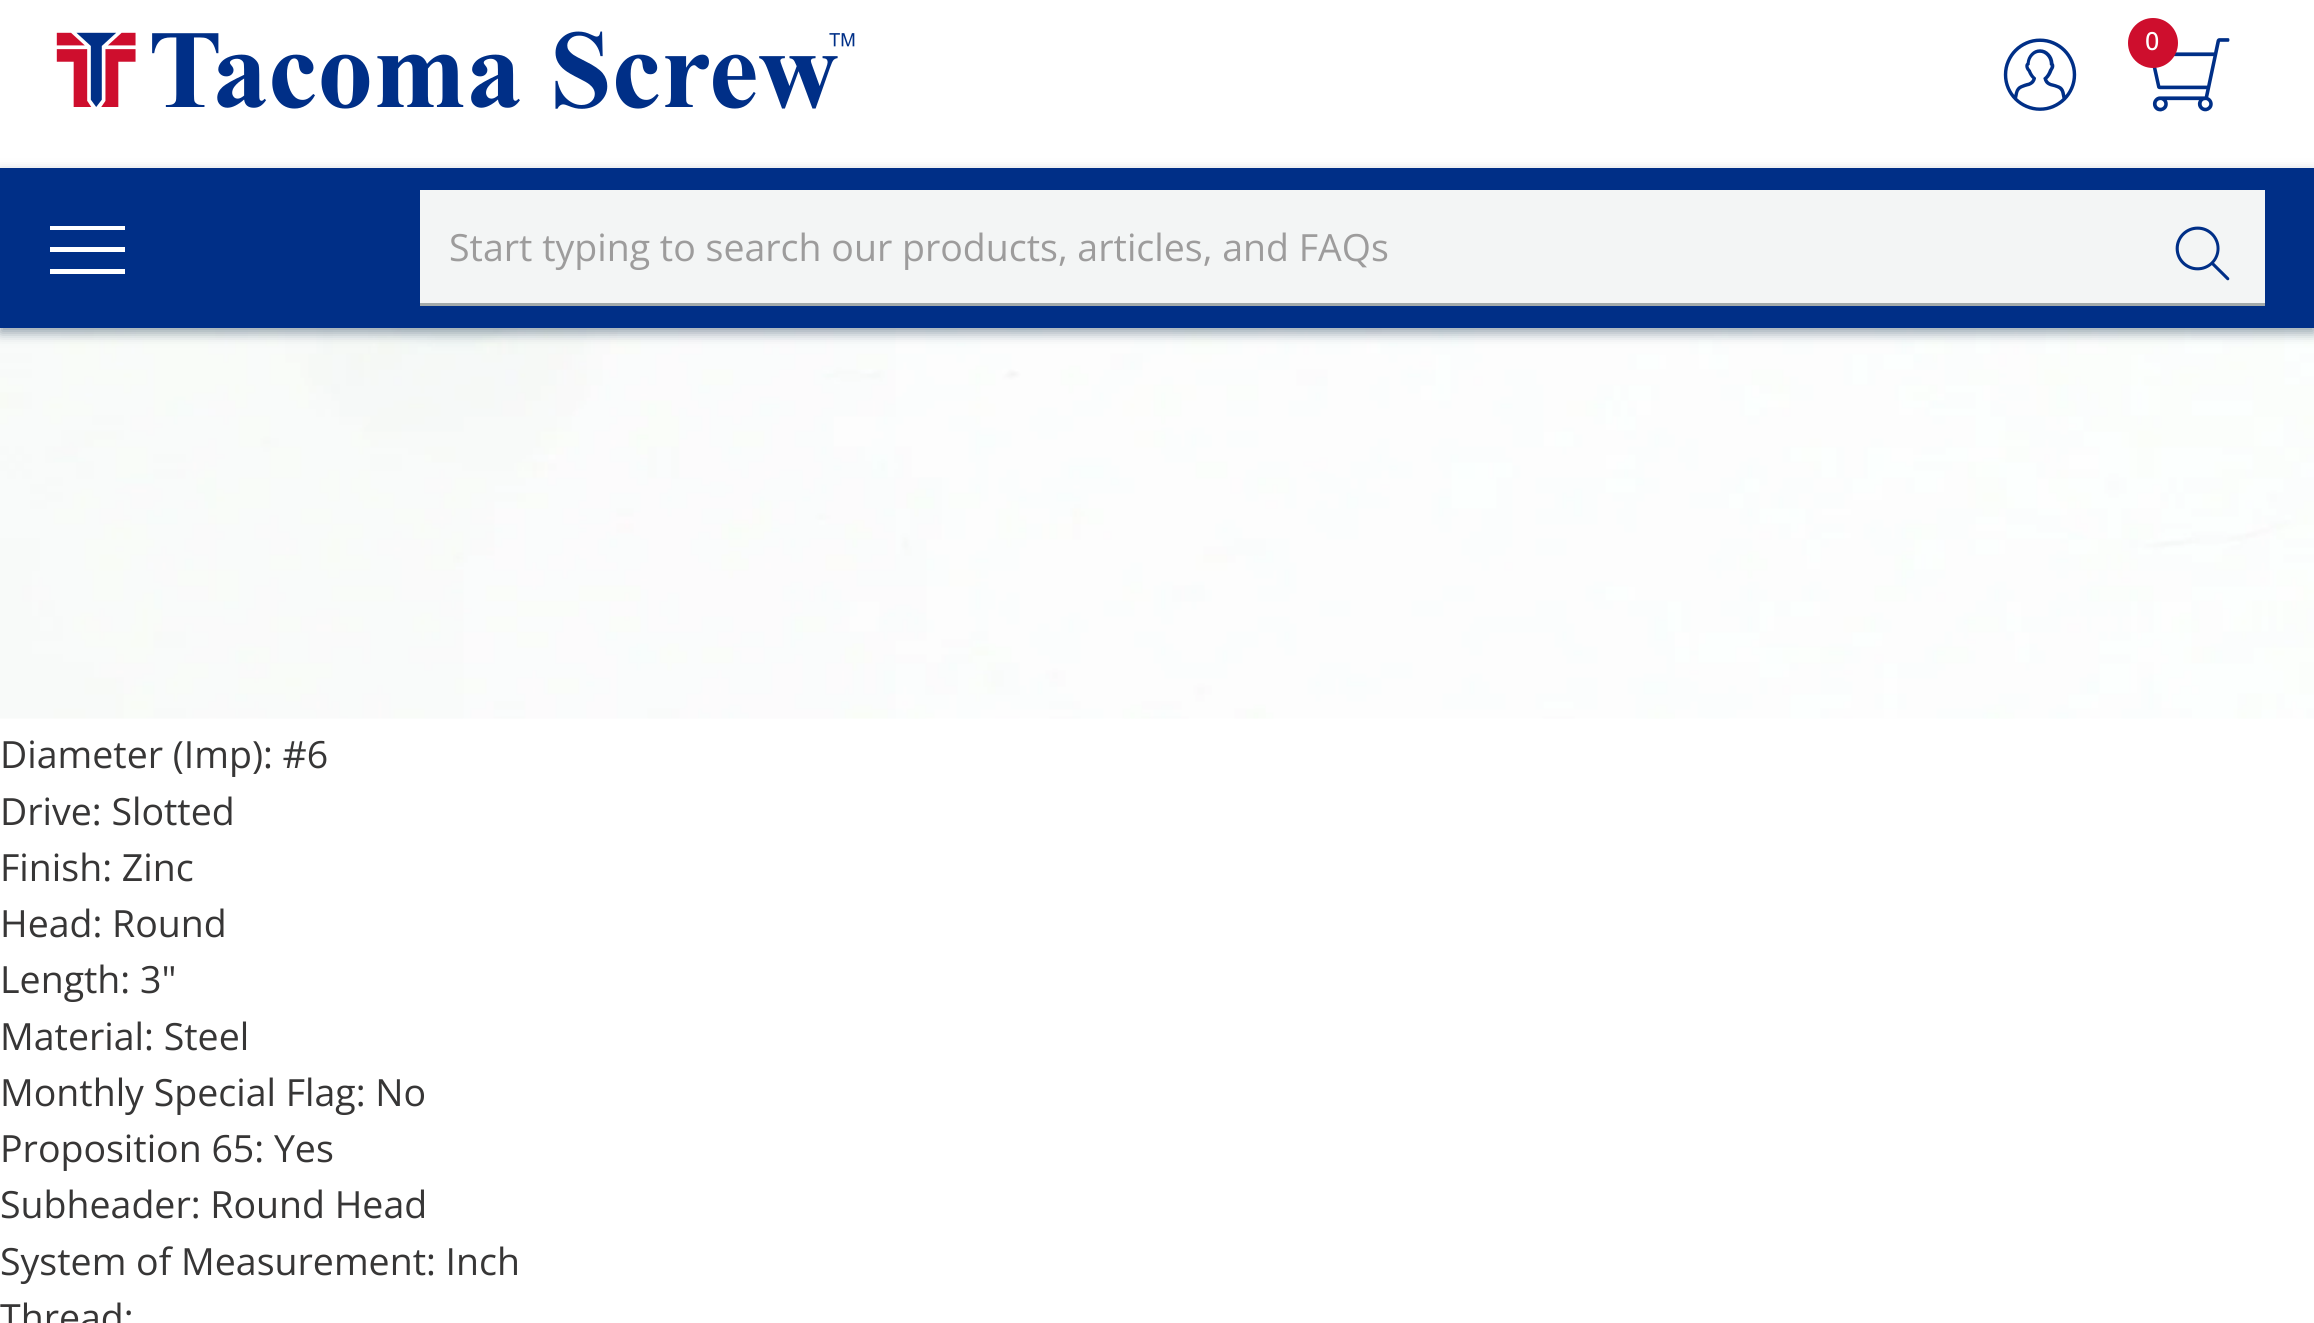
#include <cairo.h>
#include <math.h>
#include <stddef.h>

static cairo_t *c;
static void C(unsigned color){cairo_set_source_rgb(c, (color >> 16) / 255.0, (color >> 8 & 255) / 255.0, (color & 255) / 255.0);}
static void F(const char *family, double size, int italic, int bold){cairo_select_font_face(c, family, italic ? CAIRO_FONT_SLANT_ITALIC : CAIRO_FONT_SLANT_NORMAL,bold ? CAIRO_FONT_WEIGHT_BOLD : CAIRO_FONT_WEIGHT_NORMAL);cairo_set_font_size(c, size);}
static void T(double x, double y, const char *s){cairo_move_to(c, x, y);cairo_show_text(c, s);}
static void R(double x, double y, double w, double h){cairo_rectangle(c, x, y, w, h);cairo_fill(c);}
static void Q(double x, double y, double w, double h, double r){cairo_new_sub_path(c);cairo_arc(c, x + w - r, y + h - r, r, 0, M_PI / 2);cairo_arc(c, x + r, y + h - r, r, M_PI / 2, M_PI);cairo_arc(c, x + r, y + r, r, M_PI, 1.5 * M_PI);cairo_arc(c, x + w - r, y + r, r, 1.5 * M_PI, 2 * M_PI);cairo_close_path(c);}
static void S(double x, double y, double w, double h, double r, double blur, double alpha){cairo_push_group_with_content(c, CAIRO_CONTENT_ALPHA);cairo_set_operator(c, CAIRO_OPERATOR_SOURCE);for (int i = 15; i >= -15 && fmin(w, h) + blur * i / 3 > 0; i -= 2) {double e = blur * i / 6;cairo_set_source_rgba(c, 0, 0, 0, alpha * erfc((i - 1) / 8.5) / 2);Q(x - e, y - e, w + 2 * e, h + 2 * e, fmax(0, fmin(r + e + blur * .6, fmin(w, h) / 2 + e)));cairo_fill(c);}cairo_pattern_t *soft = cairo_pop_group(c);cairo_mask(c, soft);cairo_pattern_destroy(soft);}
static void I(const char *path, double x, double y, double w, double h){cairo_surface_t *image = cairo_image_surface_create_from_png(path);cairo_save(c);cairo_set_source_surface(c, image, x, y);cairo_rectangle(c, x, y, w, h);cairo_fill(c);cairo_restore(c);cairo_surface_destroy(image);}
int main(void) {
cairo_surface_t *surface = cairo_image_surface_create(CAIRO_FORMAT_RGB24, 2314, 1323);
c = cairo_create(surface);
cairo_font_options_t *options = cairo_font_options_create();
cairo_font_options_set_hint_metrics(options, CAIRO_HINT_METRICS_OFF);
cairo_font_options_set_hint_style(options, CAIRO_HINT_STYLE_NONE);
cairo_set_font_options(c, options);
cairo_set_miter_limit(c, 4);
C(0xffffff);
cairo_paint(c);
I("1.png",56,31,799,78);
I("2.png",2003,38,74,73);
I("3.png",2152,38,78,74);
C(0xce0e2d);
cairo_arc(c,2153,43,25,0,2 * M_PI);
cairo_fill(c);
F("Open Sans Medium",25,0,0);
C(0xffffff);
T(2145,50,"0");
I("5.png",0,328,2314,391);
C(0x2b455c);
S(0,173,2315,160,0,6,.5);
C(0x002f87);
R(0,168,2314,160);
C(0xffffff);
cairo_new_path(c);
cairo_move_to(c,50,269);
cairo_line_to(c,125,269);
cairo_line_to(c,125,274);
cairo_line_to(c,50,274);
cairo_close_path(c);
cairo_move_to(c,50,247);
cairo_line_to(c,125,247);
cairo_line_to(c,125,252);
cairo_line_to(c,50,252);
cairo_close_path(c);
cairo_move_to(c,50,226);
cairo_line_to(c,125,226);
cairo_line_to(c,125,230);
cairo_line_to(c,50,230);
cairo_close_path(c);
cairo_fill(c);
C(0xf3f5f5);
R(420,190,1845,113);
C(0xa3aaaa);
R(420,303,1845,3);
F("Open Sans",37.5,0,0);
C(0x9d9c9c);
T(449,261,"Start typing to search our products, articles, and FAQs");
I("4.png",2175,226,55,55);
C(0x373636);
T(0,768,"Diameter (Imp): #6");
T(0,825,"Drive: Slotted");
T(0,881,"Finish: Zinc");
T(0,937,"Head: Round");
T(0,993,"Length: 3\"");
T(0,1050,"Material: Steel");
T(0,1106,"Monthly Special Flag: No");
T(0,1162,"Proposition 65: Yes");
T(0,1218,"Subheader: Round Head");
T(0,1275,"System of Measurement: Inch");
T(0,1331,"Thread:");
cairo_surface_write_to_png(surface, "o.png");
cairo_font_options_destroy(options);
cairo_destroy(c);
cairo_surface_destroy(surface);
return 0;
}
